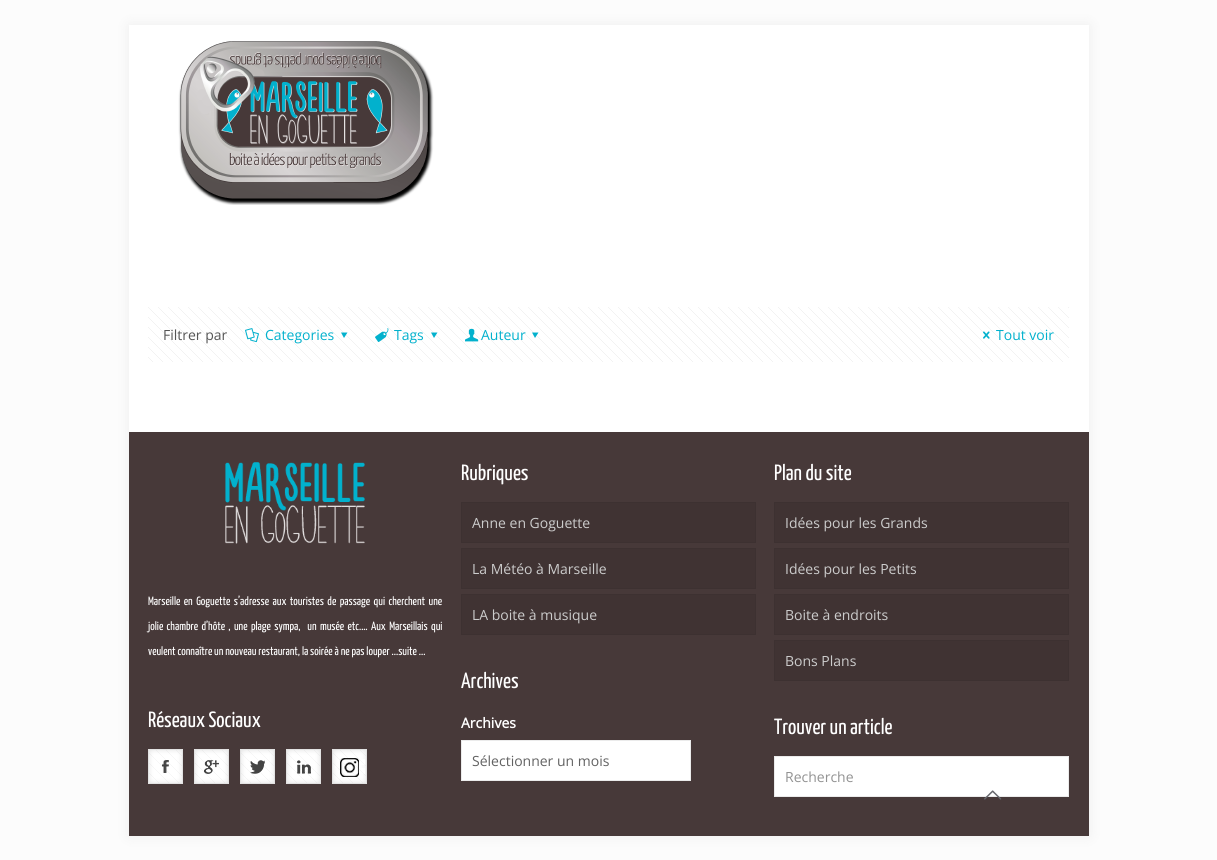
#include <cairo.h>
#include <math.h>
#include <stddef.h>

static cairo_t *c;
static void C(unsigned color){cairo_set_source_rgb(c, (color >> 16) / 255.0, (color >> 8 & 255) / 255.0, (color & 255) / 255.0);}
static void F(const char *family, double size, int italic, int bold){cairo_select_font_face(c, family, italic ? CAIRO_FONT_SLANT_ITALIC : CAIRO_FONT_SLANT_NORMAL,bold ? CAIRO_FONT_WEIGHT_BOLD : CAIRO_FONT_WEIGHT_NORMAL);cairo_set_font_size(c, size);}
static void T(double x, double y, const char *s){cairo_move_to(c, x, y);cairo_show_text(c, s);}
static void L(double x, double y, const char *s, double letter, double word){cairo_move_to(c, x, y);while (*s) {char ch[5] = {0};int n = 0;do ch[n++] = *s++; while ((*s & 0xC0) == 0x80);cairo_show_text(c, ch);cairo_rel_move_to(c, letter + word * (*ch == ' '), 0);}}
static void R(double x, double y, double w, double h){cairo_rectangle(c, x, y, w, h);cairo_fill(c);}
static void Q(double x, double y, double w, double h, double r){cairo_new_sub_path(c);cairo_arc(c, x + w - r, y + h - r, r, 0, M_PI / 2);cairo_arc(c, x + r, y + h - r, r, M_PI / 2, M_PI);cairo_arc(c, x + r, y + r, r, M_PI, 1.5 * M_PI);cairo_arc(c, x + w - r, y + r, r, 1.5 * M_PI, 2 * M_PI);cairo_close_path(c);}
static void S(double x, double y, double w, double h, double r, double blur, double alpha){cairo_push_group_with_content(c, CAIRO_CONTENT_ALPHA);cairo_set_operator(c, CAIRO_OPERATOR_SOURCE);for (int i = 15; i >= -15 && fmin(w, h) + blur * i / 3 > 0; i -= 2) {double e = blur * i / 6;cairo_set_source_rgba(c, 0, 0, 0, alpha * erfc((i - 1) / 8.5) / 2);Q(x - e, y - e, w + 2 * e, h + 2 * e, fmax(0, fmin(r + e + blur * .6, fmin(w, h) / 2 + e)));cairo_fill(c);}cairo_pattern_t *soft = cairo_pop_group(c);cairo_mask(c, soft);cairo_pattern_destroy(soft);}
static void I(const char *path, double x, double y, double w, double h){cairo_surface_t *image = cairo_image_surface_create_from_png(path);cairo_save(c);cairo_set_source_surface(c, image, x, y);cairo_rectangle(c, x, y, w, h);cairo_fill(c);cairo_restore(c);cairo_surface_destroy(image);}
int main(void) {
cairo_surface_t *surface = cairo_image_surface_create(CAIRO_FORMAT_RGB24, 1217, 860);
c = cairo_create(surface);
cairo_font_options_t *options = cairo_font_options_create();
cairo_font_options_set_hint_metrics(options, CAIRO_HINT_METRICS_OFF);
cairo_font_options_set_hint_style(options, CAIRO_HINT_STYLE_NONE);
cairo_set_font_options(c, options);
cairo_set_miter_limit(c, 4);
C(0xfcfcfc);
cairo_paint(c);
C(0x000000);
S(129,25,960,811,0,7.5,.06);
C(0xffffff);
R(129,25,960,407);
I("1.png",178,41,256,164);
I("2.png",148,307,921,55);
F("Open Sans",14,0,0);
C(0x555555);
T(163,340,"Filtrer par");
I("3.png",245,328,14,15);
C(0x02b1cd);
T(265,340,"Categories");
cairo_new_path(c);
cairo_move_to(c,347.5,332.5);
cairo_line_to(c,344,338);
cairo_line_to(c,341,332.5);
cairo_close_path(c);
cairo_fill(c);
I("4.png",375,328,14,14);
T(394,340,"Tags");
cairo_new_path(c);
cairo_move_to(c,437.5,332.5);
cairo_line_to(c,434,338);
cairo_line_to(c,431,332.5);
cairo_close_path(c);
cairo_fill(c);
I("5.png",465,328,14,14);
T(481,340,"Auteur");
cairo_new_path(c);
cairo_move_to(c,538.5,332.5);
cairo_line_to(c,535,338);
cairo_line_to(c,532,332.5);
cairo_close_path(c);
cairo_fill(c);
I("6.png",983,331,7,8);
T(996,340,"Tout voir");
C(0x473939);
R(129,432,960,404);
I("7.png",225,462,140,82);
F("Yanone Kaffeesatz ExtraLight",12,0,0);
C(0xffffff);
L(148,605,"Marseille en Goguette s’adresse aux touristes de passage qui cherchent une",0,1.6);
L(148,630,"jolie chambre d’hôte , une plage sympa,  un musée etc.… Aux Marseillais qui",0,1.5);
T(148,655,"veulent connaître un nouveau restaurant, la soirée à ne pas louper ...suite ...");
F("Yanone Kaffeesatz ExtraLight",22,0,0);
T(148,727,"Réseaux Sociaux");
I("8.png",148,749,35,35);
I("9.png",194,749,35,35);
I("10.png",240,749,35,35);
I("11.png",286,749,35,35);
I("12.png",332,749,35,35);
T(461,480,"Rubriques");
C(0x403333);
cairo_rectangle(c,461.5,502.5,294,40);
cairo_fill_preserve(c);
C(0x3d3131);
cairo_set_line_width(c,1);
cairo_stroke(c);
F("Open Sans",14,0,0);
C(0xcccccc);
T(472,528,"Anne en Goguette");
C(0x403333);
cairo_rectangle(c,461.5,548.5,294,40);
cairo_fill_preserve(c);
C(0x3d3131);
cairo_stroke(c);
C(0xcccccc);
T(472,574,"La Météo à Marseille");
C(0x403333);
cairo_rectangle(c,461.5,594.5,294,40);
cairo_fill_preserve(c);
C(0x3d3131);
cairo_stroke(c);
C(0xcccccc);
T(472,620,"LA boite à musique");
F("Yanone Kaffeesatz ExtraLight",22,0,0);
C(0xffffff);
T(461,688,"Archives");
F("Open Sans",14,0,1);
T(461,728,"Archives");
cairo_rectangle(c,461.5,740.5,229,40);
cairo_fill_preserve(c);
C(0xebebeb);
cairo_stroke(c);
F("Open Sans",14,0,0);
C(0x626262);
T(472,766,"Sélectionner un mois");
F("Yanone Kaffeesatz ExtraLight",22,0,0);
C(0xffffff);
T(774,480,"Plan du site");
C(0x403333);
cairo_rectangle(c,774.5,502.5,294,40);
cairo_fill_preserve(c);
C(0x3d3131);
cairo_stroke(c);
F("Open Sans",14,0,0);
C(0xcccccc);
T(785,528,"Idées pour les Grands");
C(0x403333);
cairo_rectangle(c,774.5,548.5,294,40);
cairo_fill_preserve(c);
C(0x3d3131);
cairo_stroke(c);
C(0xcccccc);
T(785,574,"Idées pour les Petits");
C(0x403333);
cairo_rectangle(c,774.5,594.5,294,40);
cairo_fill_preserve(c);
C(0x3d3131);
cairo_stroke(c);
C(0xcccccc);
T(785,620,"Boite à endroits");
C(0x403333);
cairo_rectangle(c,774.5,640.5,294,40);
cairo_fill_preserve(c);
C(0x3d3131);
cairo_stroke(c);
C(0xcccccc);
T(785,666,"Bons Plans");
F("Yanone Kaffeesatz ExtraLight",22,0,0);
C(0xffffff);
T(774,734,"Trouver un article");
cairo_rectangle(c,774.5,756.5,294,40);
cairo_fill_preserve(c);
C(0xebebeb);
cairo_stroke(c);
F("Open Sans",14,0,0);
C(0x929292);
T(785,782,"Recherche");
I("13.png",984,790,18,10);
cairo_surface_write_to_png(surface, "o.png");
cairo_font_options_destroy(options);
cairo_destroy(c);
cairo_surface_destroy(surface);
return 0;
}
